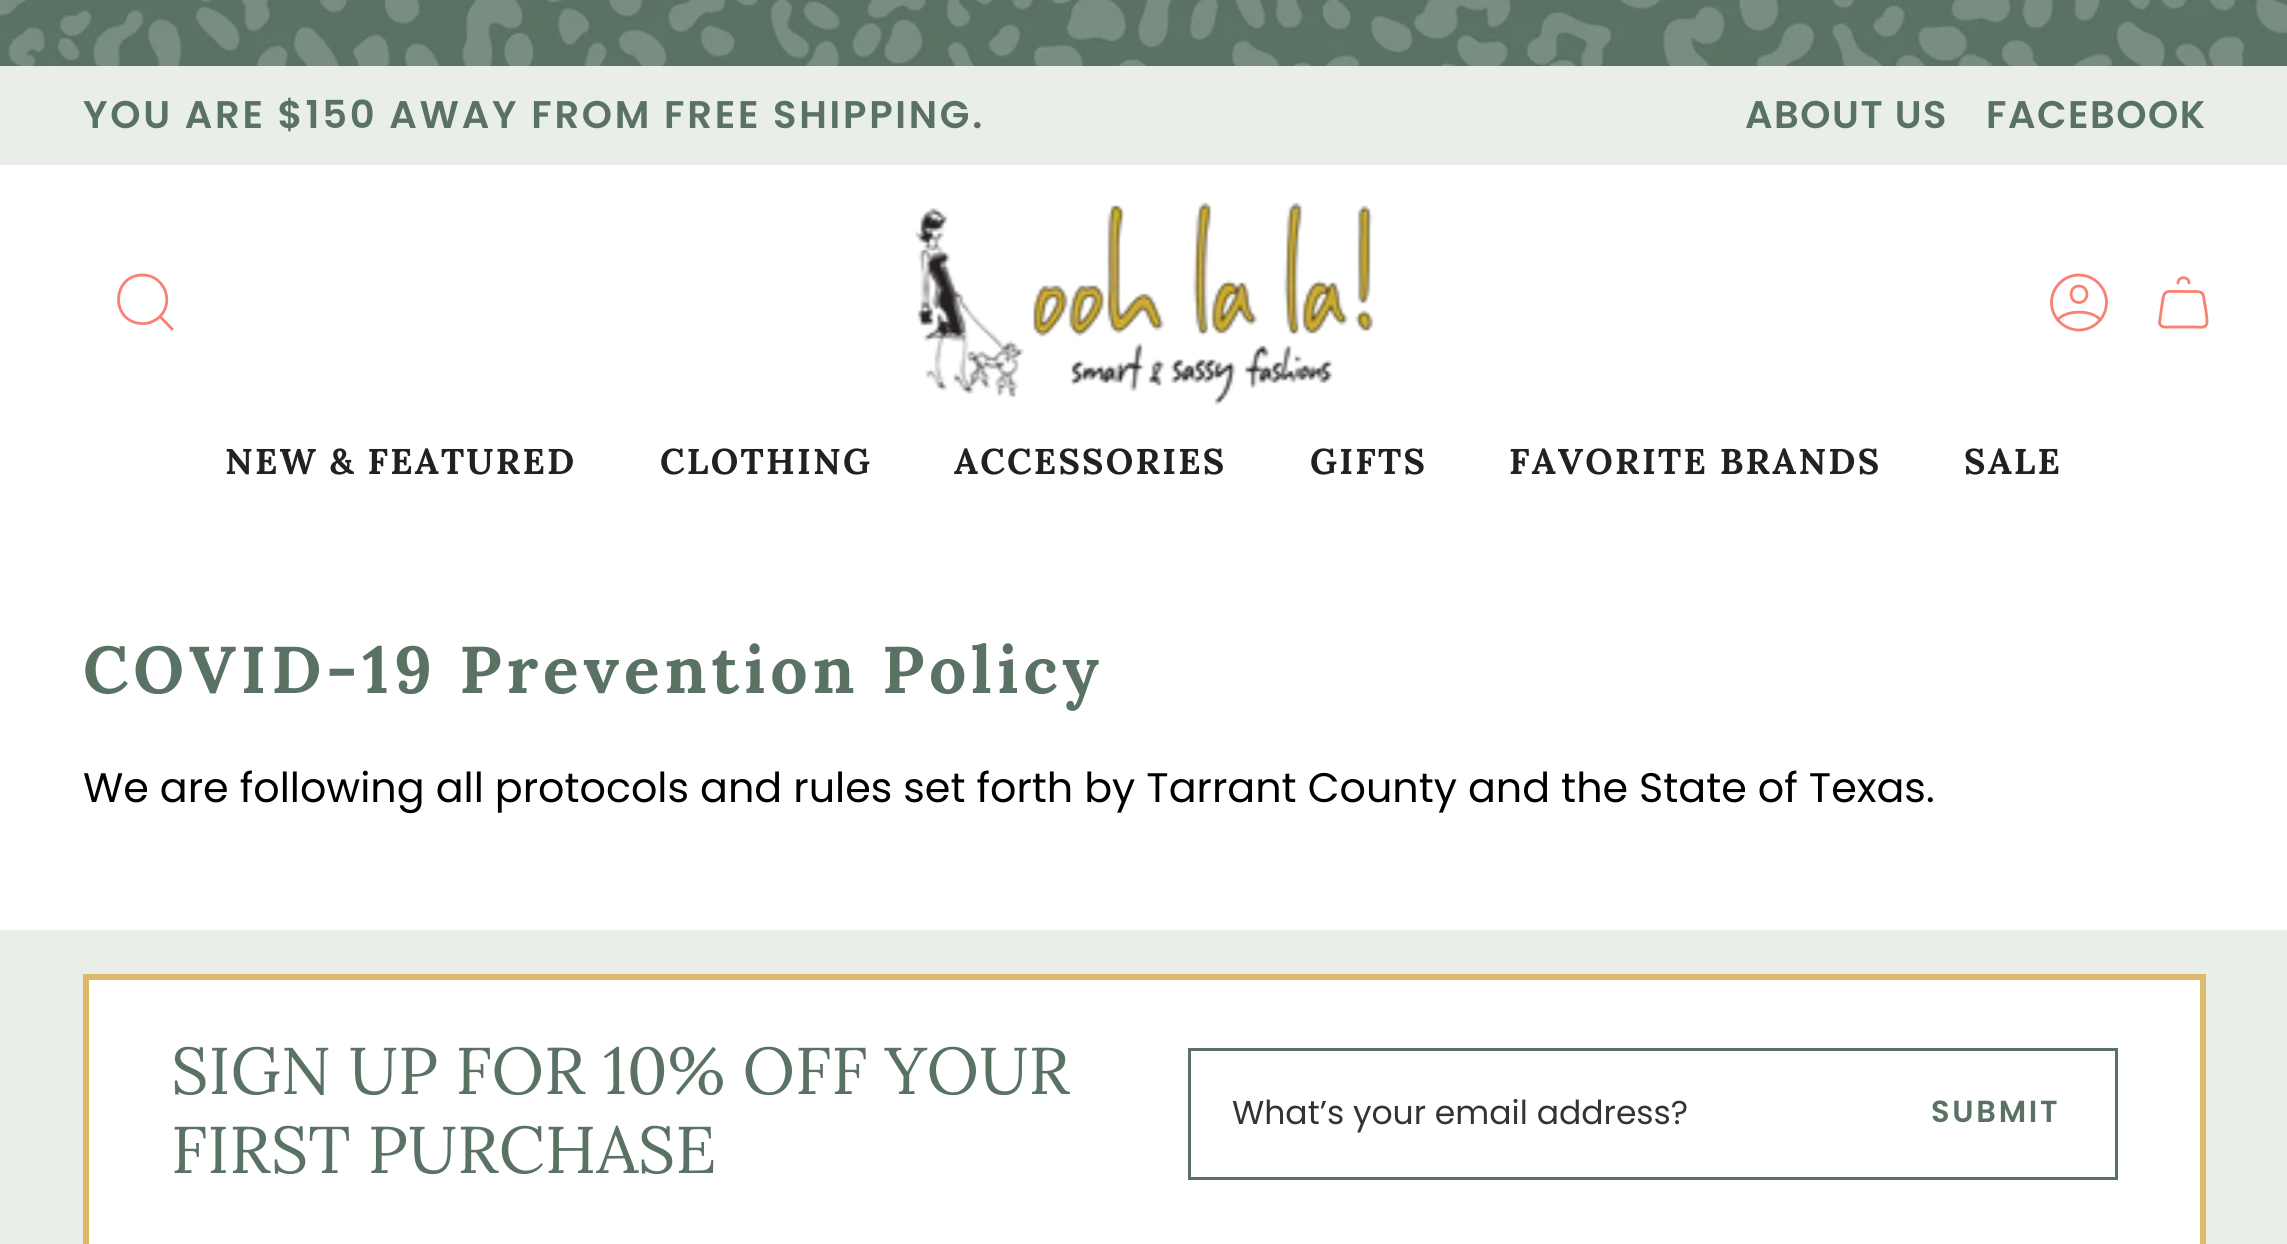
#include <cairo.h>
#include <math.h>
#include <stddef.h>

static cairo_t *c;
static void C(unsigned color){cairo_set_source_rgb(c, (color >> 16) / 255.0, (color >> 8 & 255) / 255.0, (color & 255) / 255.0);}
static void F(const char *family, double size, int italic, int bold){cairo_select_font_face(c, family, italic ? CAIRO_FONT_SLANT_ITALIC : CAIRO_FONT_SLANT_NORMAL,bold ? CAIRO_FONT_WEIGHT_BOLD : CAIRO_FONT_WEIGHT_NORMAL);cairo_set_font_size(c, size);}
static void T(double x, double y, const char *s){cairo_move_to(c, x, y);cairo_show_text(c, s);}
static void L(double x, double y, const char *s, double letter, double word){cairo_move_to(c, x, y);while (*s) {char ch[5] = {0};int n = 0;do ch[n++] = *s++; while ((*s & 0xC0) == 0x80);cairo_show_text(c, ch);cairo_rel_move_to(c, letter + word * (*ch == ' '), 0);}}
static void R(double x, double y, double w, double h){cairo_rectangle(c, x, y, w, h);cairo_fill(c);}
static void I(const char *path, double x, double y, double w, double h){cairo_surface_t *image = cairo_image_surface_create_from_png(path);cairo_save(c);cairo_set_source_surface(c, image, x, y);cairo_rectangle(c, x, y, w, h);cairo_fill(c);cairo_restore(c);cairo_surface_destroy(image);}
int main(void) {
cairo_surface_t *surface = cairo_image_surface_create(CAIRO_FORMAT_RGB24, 2287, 1244);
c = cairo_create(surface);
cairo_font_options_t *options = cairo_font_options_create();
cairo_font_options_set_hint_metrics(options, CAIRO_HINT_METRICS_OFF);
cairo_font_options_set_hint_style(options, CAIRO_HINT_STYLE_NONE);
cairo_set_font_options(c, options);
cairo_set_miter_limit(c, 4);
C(0xffffff);
cairo_paint(c);
I("1.png",0,0,2287,66);
C(0xe9eee9);
R(0,66,2287,99);
F("Poppins SemiBold",38.5,0,0);
C(0x5a7264);
L(83,128,"YOU ARE $150 AWAY FROM FREE SHIPPING.",2.75,0);
L(1745,128,"ABOUT US",1.5,0);
L(1986,128,"FACEBOOK",1.5,0);
cairo_new_path(c);
cairo_move_to(c,142.5,275);
cairo_curve_to(c,165.5,275,176,305,157,319);
cairo_curve_to(c,152.5,322,147,324,141.5,323.5);
cairo_curve_to(c,110,322,111.5,275,142.5,275);
cairo_close_path(c);
cairo_move_to(c,160,316.5);
cairo_line_to(c,173,330);
C(0xfa8072);
cairo_set_line_width(c,2.8);
cairo_stroke(c);
I("2.png",915,202,459,203);
cairo_new_path(c);
cairo_move_to(c,2079,275);
cairo_curve_to(c,2064,275,2051.5,287.5,2051.5,302.5);
cairo_curve_to(c,2051.5,317.5,2064,330,2079,330);
cairo_curve_to(c,2094,330,2106.5,317.5,2106.5,302.5);
cairo_curve_to(c,2106.5,287.5,2094,275,2079,275);
cairo_close_path(c);
cairo_move_to(c,2057.5,320);
cairo_curve_to(c,2066,309.5,2092,309.5,2100.5,320);
cairo_move_to(c,2079,302.5);
cairo_curve_to(c,2089.5,302.5,2089.5,286,2079,286);
cairo_curve_to(c,2068.5,286,2068.5,302.5,2079,302.5);
cairo_close_path(c);
cairo_set_line_cap(c,CAIRO_LINE_CAP_ROUND);
cairo_set_line_join(c,CAIRO_LINE_JOIN_ROUND);
cairo_stroke(c);
cairo_new_path(c);
cairo_move_to(c,2203.5,296);
cairo_curve_to(c,2204,301,2208.5,321,2206.5,324.5);
cairo_curve_to(c,2204.5,328.5,2199.5,327,2195.5,327);
cairo_line_to(c,2171.5,327);
cairo_curve_to(c,2167,327,2160.5,328.5,2159.5,322.5);
cairo_line_to(c,2161.5,308.5);
cairo_curve_to(c,2164.5,288.5,2162.5,291.5,2183.5,291.5);
cairo_line_to(c,2193,291.5);
cairo_curve_to(c,2197,291.5,2202.5,291,2203.5,296);
cairo_close_path(c);
cairo_move_to(c,2189,283);
cairo_curve_to(c,2189,276,2178,276,2178,283);
cairo_stroke(c);
F("Lora",35.75,0,1);
C(0x212121);
L(225,474,"NEW & FEATURED",2.25,0);
L(660,474,"CLOTHING",2.25,0);
L(954,474,"ACCESSORIES",2.25,0);
L(1310,474,"GIFTS",2.25,0);
L(1509,474,"FAVORITE BRANDS",2.25,0);
L(1964,474,"SALE",2.25,0);
F("Lora",66,0,1);
C(0x5a7264);
L(83,693,"COVID-19 Prevention Policy",4.95,0);
F("Poppins",41.25,0,0);
C(0x000000);
T(83,802,"We are following all protocols and rules set forth by Tarrant County and the State of Texas.");
C(0xe9eee9);
R(0,930,2287,314);
C(0xffffff);
cairo_rectangle(c,86,977,2117,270);
cairo_fill_preserve(c);
C(0xdbbb6a);
cairo_set_line_width(c,6);
cairo_set_line_cap(c,CAIRO_LINE_CAP_BUTT);
cairo_set_line_join(c,CAIRO_LINE_JOIN_MITER);
cairo_stroke(c);
F("Lora",66,0,0);
C(0x5a7264);
T(171,1094,"SIGN UP FOR 10% OFF YOUR");
T(171,1173,"FIRST PURCHASE");
cairo_rectangle(c,1189.5,1049.5,927,129);
cairo_set_line_width(c,3);
cairo_stroke(c);
F("Poppins",33,0,0);
C(0x333333);
T(1232,1124,"What’s your email address?");
F("Poppins SemiBold",30.5,0,0);
C(0x5a7264);
L(1931,1122,"SUBMIT",2.75,0);
cairo_surface_write_to_png(surface, "o.png");
cairo_font_options_destroy(options);
cairo_destroy(c);
cairo_surface_destroy(surface);
return 0;
}
